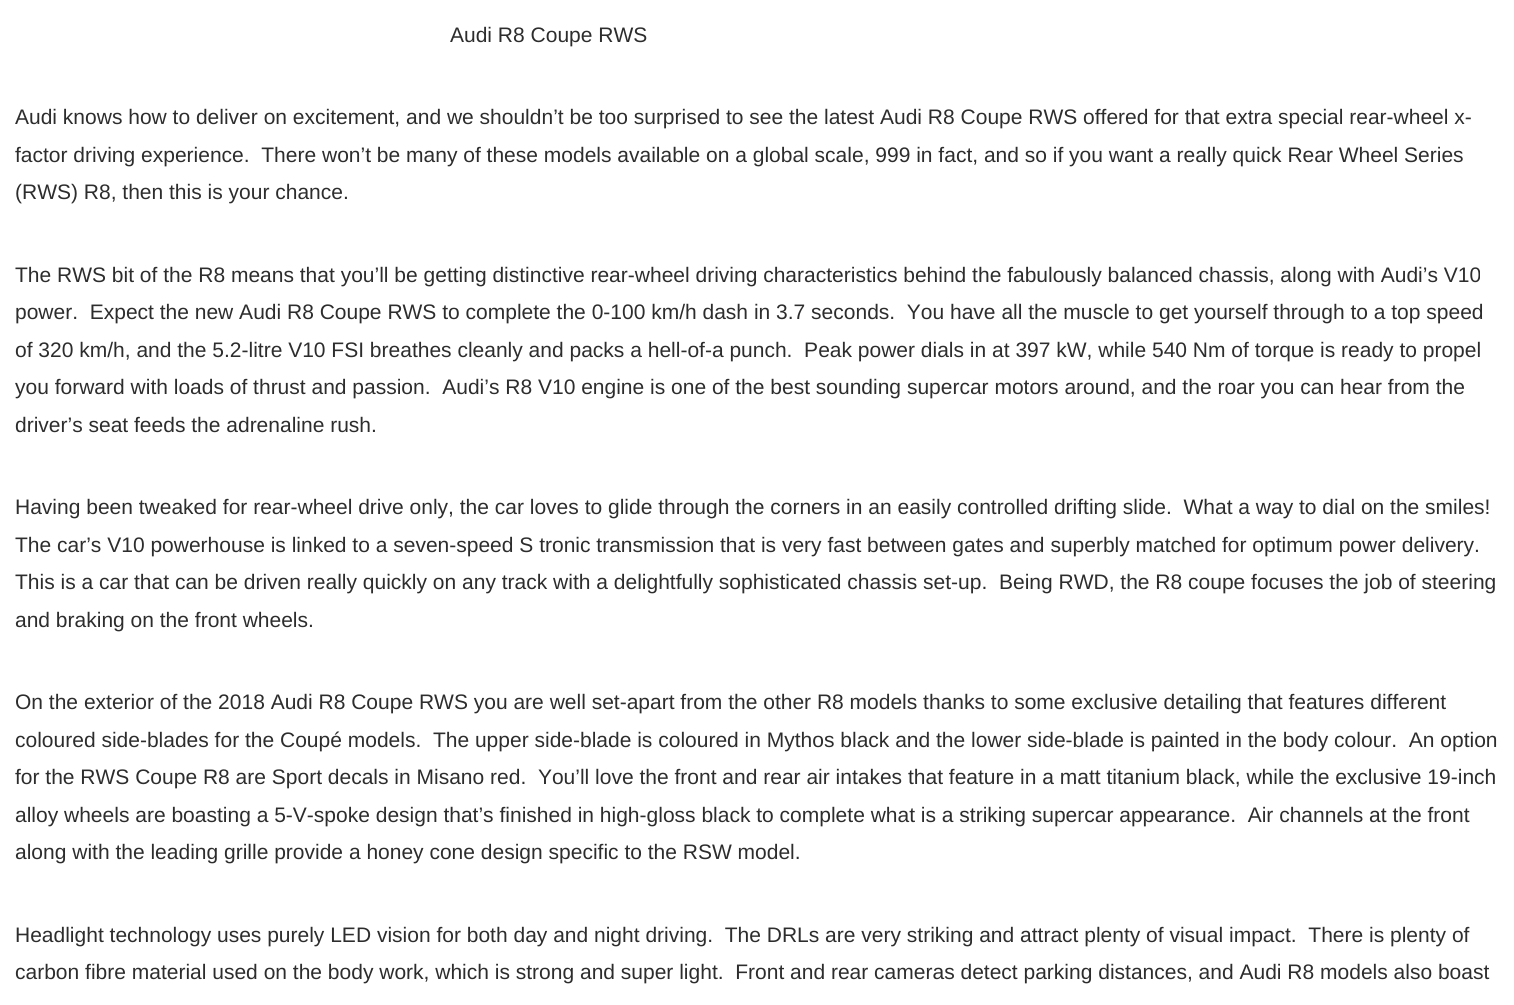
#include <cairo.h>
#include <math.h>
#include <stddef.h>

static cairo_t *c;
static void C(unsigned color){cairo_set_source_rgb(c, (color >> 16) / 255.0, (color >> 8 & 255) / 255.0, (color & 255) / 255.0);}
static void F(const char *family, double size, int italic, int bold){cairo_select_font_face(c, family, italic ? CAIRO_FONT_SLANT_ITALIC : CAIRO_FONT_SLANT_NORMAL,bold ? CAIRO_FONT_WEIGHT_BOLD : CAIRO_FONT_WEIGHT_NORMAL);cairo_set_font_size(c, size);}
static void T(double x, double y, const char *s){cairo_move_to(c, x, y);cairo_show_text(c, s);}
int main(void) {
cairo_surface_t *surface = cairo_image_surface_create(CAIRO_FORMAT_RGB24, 1514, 1005);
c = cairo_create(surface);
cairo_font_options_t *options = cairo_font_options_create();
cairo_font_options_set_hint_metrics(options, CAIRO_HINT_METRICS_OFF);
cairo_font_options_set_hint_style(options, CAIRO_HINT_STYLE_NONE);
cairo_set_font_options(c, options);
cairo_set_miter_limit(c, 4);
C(0xffffff);
cairo_paint(c);
F("Liberation Sans",21,0,0);
C(0x2e2d2d);
T(450,42,"Audi R8 Coupe RWS");
T(15,124,"Audi knows how to deliver on excitement, and we shouldn’t be too surprised to see the latest Audi R8 Coupe RWS offered for that extra special rear-wheel x-");
T(15,162,"factor driving experience.  There won’t be many of these models available on a global scale, 999 in fact, and so if you want a really quick Rear Wheel Series");
T(15,199,"(RWS) R8, then this is your chance.");
T(15,282,"The RWS bit of the R8 means that you’ll be getting distinctive rear-wheel driving characteristics behind the fabulously balanced chassis, along with Audi’s V10");
T(15,319,"power.  Expect the new Audi R8 Coupe RWS to complete the 0-100 km/h dash in 3.7 seconds.  You have all the muscle to get yourself through to a top speed");
T(15,357,"of 320 km/h, and the 5.2-litre V10 FSI breathes cleanly and packs a hell-of-a punch.  Peak power dials in at 397 kW, while 540 Nm of torque is ready to propel");
T(15,394,"you forward with loads of thrust and passion.  Audi’s R8 V10 engine is one of the best sounding supercar motors around, and the roar you can hear from the");
T(15,432,"driver’s seat feeds the adrenaline rush.");
T(15,514,"Having been tweaked for rear-wheel drive only, the car loves to glide through the corners in an easily controlled drifting slide.  What a way to dial on the smiles!");
T(15,552,"The car’s V10 powerhouse is linked to a seven-speed S tronic transmission that is very fast between gates and superbly matched for optimum power delivery.");
T(15,589,"This is a car that can be driven really quickly on any track with a delightfully sophisticated chassis set-up.  Being RWD, the R8 coupe focuses the job of steering");
T(15,627,"and braking on the front wheels.");
T(15,709,"On the exterior of the 2018 Audi R8 Coupe RWS you are well set-apart from the other R8 models thanks to some exclusive detailing that features different");
T(15,747,"coloured side-blades for the Coupé models.  The upper side-blade is coloured in Mythos black and the lower side-blade is painted in the body colour.  An option");
T(15,784,"for the RWS Coupe R8 are Sport decals in Misano red.  You’ll love the front and rear air intakes that feature in a matt titanium black, while the exclusive 19-inch");
T(15,822,"alloy wheels are boasting a 5-V-spoke design that’s finished in high-gloss black to complete what is a striking supercar appearance.  Air channels at the front");
T(15,859,"along with the leading grille provide a honey cone design specific to the RSW model.");
T(15,942,"Headlight technology uses purely LED vision for both day and night driving.  The DRLs are very striking and attract plenty of visual impact.  There is plenty of");
T(15,979,"carbon fibre material used on the body work, which is strong and super light.  Front and rear cameras detect parking distances, and Audi R8 models also boast");
cairo_surface_write_to_png(surface, "o.png");
cairo_font_options_destroy(options);
cairo_destroy(c);
cairo_surface_destroy(surface);
return 0;
}
